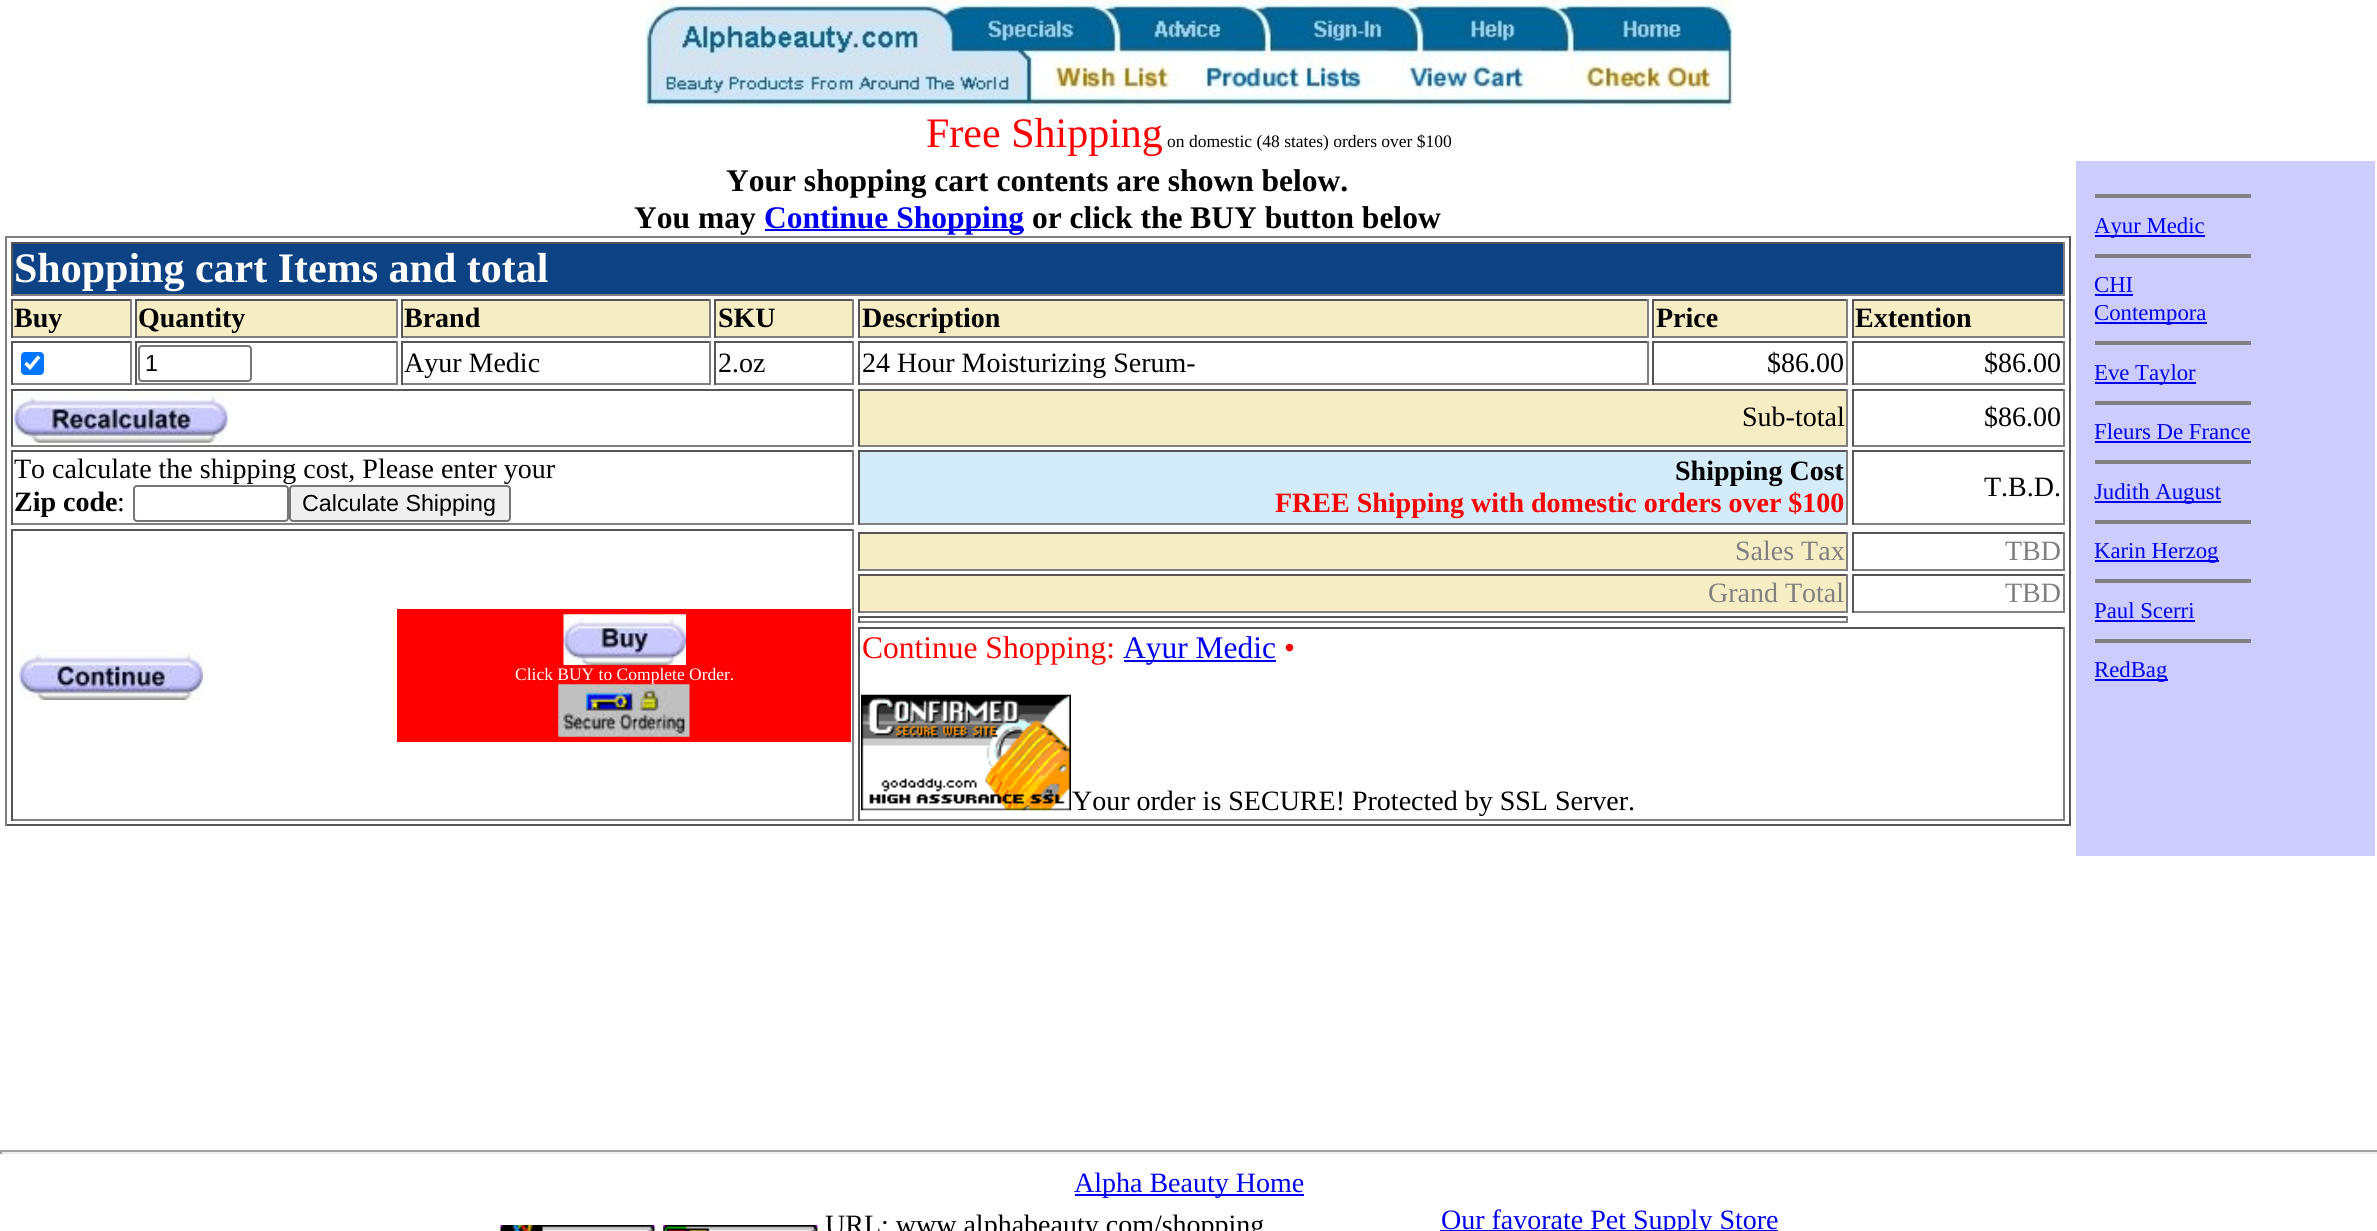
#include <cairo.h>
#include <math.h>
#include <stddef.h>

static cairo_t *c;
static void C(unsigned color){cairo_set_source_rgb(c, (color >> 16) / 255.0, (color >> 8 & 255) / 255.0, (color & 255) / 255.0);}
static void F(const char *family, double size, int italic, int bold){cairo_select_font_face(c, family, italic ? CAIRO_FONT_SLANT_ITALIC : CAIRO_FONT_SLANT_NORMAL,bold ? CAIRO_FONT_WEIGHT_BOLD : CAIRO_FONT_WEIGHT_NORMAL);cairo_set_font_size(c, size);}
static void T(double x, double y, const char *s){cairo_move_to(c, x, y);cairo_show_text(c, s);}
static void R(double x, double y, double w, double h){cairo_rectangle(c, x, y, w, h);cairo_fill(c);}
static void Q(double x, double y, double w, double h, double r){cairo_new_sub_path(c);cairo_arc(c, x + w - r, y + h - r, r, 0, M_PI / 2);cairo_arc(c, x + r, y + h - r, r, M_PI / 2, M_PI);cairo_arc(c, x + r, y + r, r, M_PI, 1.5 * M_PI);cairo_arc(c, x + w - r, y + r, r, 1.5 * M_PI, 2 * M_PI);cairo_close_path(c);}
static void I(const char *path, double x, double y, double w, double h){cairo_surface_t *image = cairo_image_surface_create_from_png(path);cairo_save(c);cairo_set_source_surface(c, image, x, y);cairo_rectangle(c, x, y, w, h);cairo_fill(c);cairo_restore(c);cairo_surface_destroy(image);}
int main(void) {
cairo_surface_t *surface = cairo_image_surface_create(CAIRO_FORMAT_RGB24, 2377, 1231);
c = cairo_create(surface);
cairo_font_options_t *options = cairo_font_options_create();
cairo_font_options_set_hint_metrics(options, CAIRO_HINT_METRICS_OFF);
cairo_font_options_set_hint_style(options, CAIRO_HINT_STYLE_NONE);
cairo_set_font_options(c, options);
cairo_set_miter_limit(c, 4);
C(0xffffff);
cairo_paint(c);
I("1.png",645,0,1088,111);
F("Liberation Serif",42,0,0);
C(0xff0000);
T(926,147,"Free Shipping");
F("Liberation Serif",17.5,0,0);
C(0x000000);
T(1167,147,"on domestic (48 states) orders over $100");
F("Liberation Serif",31.5,0,1);
T(726,191,"Your shopping cart contents are shown below.");
T(634,228,"You may");
C(0x0000ee);
R(765,229,259,2);
T(764,228,"Continue Shopping");
C(0x000000);
T(1032,228,"or click the BUY button below");
C(0x808080);
R(5,236,2065,2);
C(0x555555);
R(2069,236,2,590);
R(5,824,2065,2);
C(0x808080);
R(5,236,2,590);
C(0x0d4284);
R(13,244,2050,50);
C(0x555555);
R(11,242,2054,2);
C(0x808080);
R(2063,242,2,54);
R(11,294,2054,2);
C(0x555555);
R(11,242,2,54);
F("Liberation Serif",42,0,1);
C(0xffffff);
T(14,282,"Shopping cart Items and total");
C(0xf7edc5);
R(13,301,117,35);
C(0x555555);
R(11,299,120,2);
C(0x808080);
R(130,299,2,39);
R(11,336,120,2);
C(0x555555);
R(11,299,2,39);
F("Liberation Serif",28,0,1);
C(0x000000);
T(14,327,"Buy");
C(0xf7edc5);
R(137,301,259,35);
C(0x555555);
R(135,299,262,2);
C(0x808080);
R(396,299,2,39);
R(135,336,262,2);
C(0x555555);
R(135,299,2,39);
C(0x000000);
T(138,327,"Quantity");
C(0xf7edc5);
R(403,301,306,35);
C(0x555555);
R(401,299,310,2);
C(0x808080);
R(709,299,2,39);
R(401,336,310,2);
C(0x555555);
R(401,299,2,39);
C(0x000000);
T(404,327,"Brand");
C(0xf7edc5);
R(716,301,136,35);
C(0x555555);
R(714,299,140,2);
C(0x808080);
R(852,299,2,39);
R(714,336,140,2);
C(0x555555);
R(714,299,2,39);
C(0x000000);
T(718,327,"SKU");
C(0xf7edc5);
R(860,301,787,35);
C(0x555555);
R(858,299,791,2);
C(0x808080);
R(1647,299,2,39);
R(858,336,791,2);
C(0x555555);
R(858,299,2,39);
C(0x000000);
T(862,327,"Description");
C(0xf7edc5);
R(1654,301,192,35);
C(0x555555);
R(1652,299,196,2);
C(0x808080);
R(1846,299,2,39);
R(1652,336,196,2);
C(0x555555);
R(1652,299,2,39);
C(0x000000);
T(1656,327,"Price");
C(0xf7edc5);
R(1854,301,209,35);
C(0x555555);
R(1852,299,213,2);
C(0x808080);
R(2063,299,2,39);
R(1852,336,213,2);
C(0x555555);
R(1852,299,2,39);
C(0x000000);
T(1855,327,"Extention");
C(0x555555);
R(11,341,120,2);
C(0x808080);
R(130,341,2,44);
R(11,383,120,2);
C(0x555555);
R(11,341,2,44);
C(0x0075ff);
Q(21,352,23,23,4);
cairo_fill(c);
cairo_new_path(c);
cairo_move_to(c,25.5,363);
cairo_line_to(c,30,367.5);
cairo_line_to(c,39,356.5);
C(0xffffff);
cairo_set_line_width(c,3.6);
cairo_stroke(c);
C(0x555555);
R(135,341,262,2);
C(0x808080);
R(396,341,2,44);
R(135,383,262,2);
C(0x555555);
R(135,341,2,44);
Q(139,346,112,35,3);
C(0x767676);
cairo_set_line_width(c,2);
cairo_stroke(c);
F("Liberation Sans",23.25,0,0);
C(0x000000);
T(145,371,"1");
C(0x555555);
R(401,341,310,2);
C(0x808080);
R(709,341,2,44);
R(401,383,310,2);
C(0x555555);
R(401,341,2,44);
F("Liberation Serif",28,0,0);
C(0x000000);
T(404,372,"Ayur Medic");
C(0x555555);
R(714,341,140,2);
C(0x808080);
R(852,341,2,44);
R(714,383,140,2);
C(0x555555);
R(714,341,2,44);
C(0x000000);
T(718,372,"2.oz");
C(0x555555);
R(858,341,791,2);
C(0x808080);
R(1647,341,2,44);
R(858,383,791,2);
C(0x555555);
R(858,341,2,44);
C(0x000000);
T(862,372,"24 Hour Moisturizing Serum-");
C(0x555555);
R(1652,341,196,2);
C(0x808080);
R(1846,341,2,44);
R(1652,383,196,2);
C(0x555555);
R(1652,341,2,44);
C(0x000000);
T(1767,372,"$86.00");
C(0x555555);
R(1852,341,213,2);
C(0x808080);
R(2063,341,2,44);
R(1852,383,213,2);
C(0x555555);
R(1852,341,2,44);
C(0x000000);
T(1984,372,"$86.00");
C(0x555555);
R(11,389,843,2);
C(0x808080);
R(852,389,2,57);
R(11,445,843,2);
C(0x555555);
R(11,389,2,57);
I("2.png",14,392,214,51);
C(0xf7edc5);
R(860,391,986,54);
C(0x555555);
R(858,389,990,2);
C(0x808080);
R(1846,389,2,57);
R(858,445,990,2);
C(0x555555);
R(858,389,2,57);
C(0x000000);
T(1742,426,"Sub-total");
C(0x555555);
R(1852,389,213,2);
C(0x808080);
R(2063,389,2,57);
R(1852,445,213,2);
C(0x555555);
R(1852,389,2,57);
C(0x000000);
T(1984,426,"$86.00");
C(0x555555);
R(11,450,843,2);
C(0x808080);
R(852,450,2,75);
R(11,523,843,2);
C(0x555555);
R(11,450,2,75);
C(0x000000);
T(14,478,"To calculate the shipping cost, Please enter your");
F("Liberation Serif",28,0,1);
T(14,511,"Zip code");
F("Liberation Serif",28,0,0);
T(117,511,":");
Q(134,486,154,35,3);
C(0x767676);
cairo_stroke(c);
C(0xefefef);
Q(290,486,220,35,3);
cairo_fill_preserve(c);
C(0x767676);
cairo_stroke(c);
F("Liberation Sans",23.25,0,0);
C(0x000000);
T(302,511,"Calculate Shipping");
C(0xd4ebf9);
R(860,452,986,71);
C(0x555555);
R(858,450,990,2);
C(0x808080);
R(1846,450,2,75);
R(858,523,990,2);
C(0x555555);
R(858,450,2,75);
F("Liberation Serif",28,0,1);
C(0x000000);
T(1675,480,"Shipping Cost");
C(0xff0000);
T(1275,512,"FREE Shipping with domestic orders over $100");
C(0x555555);
R(1852,450,213,2);
C(0x808080);
R(2063,450,2,75);
R(1852,523,213,2);
C(0x555555);
R(1852,450,2,75);
F("Liberation Serif",28,0,0);
C(0x000000);
T(1984,496,"T.B.D.");
C(0xf7edc5);
R(860,534,986,35);
C(0x555555);
R(858,532,990,2);
C(0x808080);
R(1846,532,2,39);
R(858,569,990,2);
C(0x555555);
R(858,532,2,39);
C(0x808080);
T(1735,560,"Sales Tax");
C(0x555555);
R(1852,532,213,2);
C(0x808080);
R(2063,532,2,39);
R(1852,569,213,2);
C(0x555555);
R(1852,532,2,39);
C(0x808080);
T(2005,560,"TBD");
C(0xf7edc5);
R(860,576,986,35);
C(0x555555);
R(858,574,990,2);
C(0x808080);
R(1846,574,2,39);
R(858,611,990,2);
C(0x555555);
R(858,574,2,39);
C(0x808080);
T(1708,602,"Grand Total");
C(0x555555);
R(1852,574,213,2);
C(0x808080);
R(2063,574,2,39);
R(1852,611,213,2);
C(0x555555);
R(1852,574,2,39);
C(0x808080);
T(2005,602,"TBD");
C(0x555555);
R(858,616,990,2);
C(0x808080);
R(1846,616,2,7);
R(858,621,990,2);
C(0x555555);
R(858,616,2,7);
R(11,529,843,2);
C(0x808080);
R(852,529,2,292);
R(11,819,843,2);
C(0x555555);
R(11,529,2,292);
I("3.png",19,649,184,51);
C(0xff0000);
R(397,609,454,133);
I("4.png",563,614,123,51);
F("Liberation Serif",17.5,0,0);
C(0xffffff);
T(515,680,"Click BUY to Complete Order.");
I("5.png",558,684,132,53);
C(0x555555);
R(858,627,1207,2);
C(0x808080);
R(2063,627,2,194);
R(858,819,1207,2);
C(0x555555);
R(858,627,2,194);
F("Liberation Serif",31.5,0,0);
C(0xff0000);
T(862,658,"Continue Shopping:");
C(0x0000ee);
R(1124,660,152,2);
T(1123,658,"Ayur Medic");
C(0xff0000);
T(1284,658,"•");
I("6.png",861,694,210,117);
F("Liberation Serif",28,0,0);
C(0x000000);
T(1072,810,"Your order is SECURE! Protected by SSL Server.");
C(0xccccff);
R(2076,161,299,695);
C(0x808080);
R(2095,194,156,4);
C(0x0000ee);
R(2095,235,110,2);
F("Liberation Serif",22.75,0,0);
T(2094,233,"Ayur Medic");
C(0x808080);
R(2095,254,156,4);
C(0x0000ee);
T(2094,292,"CHI");
R(2095,294,38,2);
R(2095,322,112,2);
T(2094,320,"Contempora");
C(0x808080);
R(2095,341,156,4);
C(0x0000ee);
R(2095,382,101,2);
T(2094,380,"Eve Taylor");
C(0x808080);
R(2095,401,156,4);
C(0x0000ee);
T(2094,439,"Fleurs De France");
R(2095,441,156,2);
C(0x808080);
R(2095,460,156,4);
C(0x0000ee);
R(2095,501,126,2);
T(2094,499,"Judith August");
C(0x808080);
R(2095,520,156,4);
C(0x0000ee);
R(2095,560,124,2);
T(2094,558,"Karin Herzog");
C(0x808080);
R(2095,579,156,4);
C(0x0000ee);
T(2094,618,"Paul Scerri");
R(2095,620,100,2);
C(0x808080);
R(2095,639,156,4);
C(0x0000ee);
R(2095,679,73,2);
T(2094,677,"RedBag");
C(0x9f9f9f);
R(0,1150,2377,2);
C(0xeeeeee);
R(0,1152,2377,2);
C(0x9f9f9f);
R(0,1150,2,4);
C(0x0000ee);
R(1075,1194,229,2);
F("Liberation Serif",28,0,0);
T(1074,1192,"Alpha Beauty Home");
I("7.png",500,1225,155,6);
I("8.png",663,1225,155,6);
C(0x000000);
T(825,1234,"URL: www.alphabeauty.com/shopping");
C(0x0000ee);
R(1440,1230,338,1);
T(1441,1229,"Our favorate Pet Supply Store");
cairo_surface_write_to_png(surface, "o.png");
cairo_font_options_destroy(options);
cairo_destroy(c);
cairo_surface_destroy(surface);
return 0;
}
